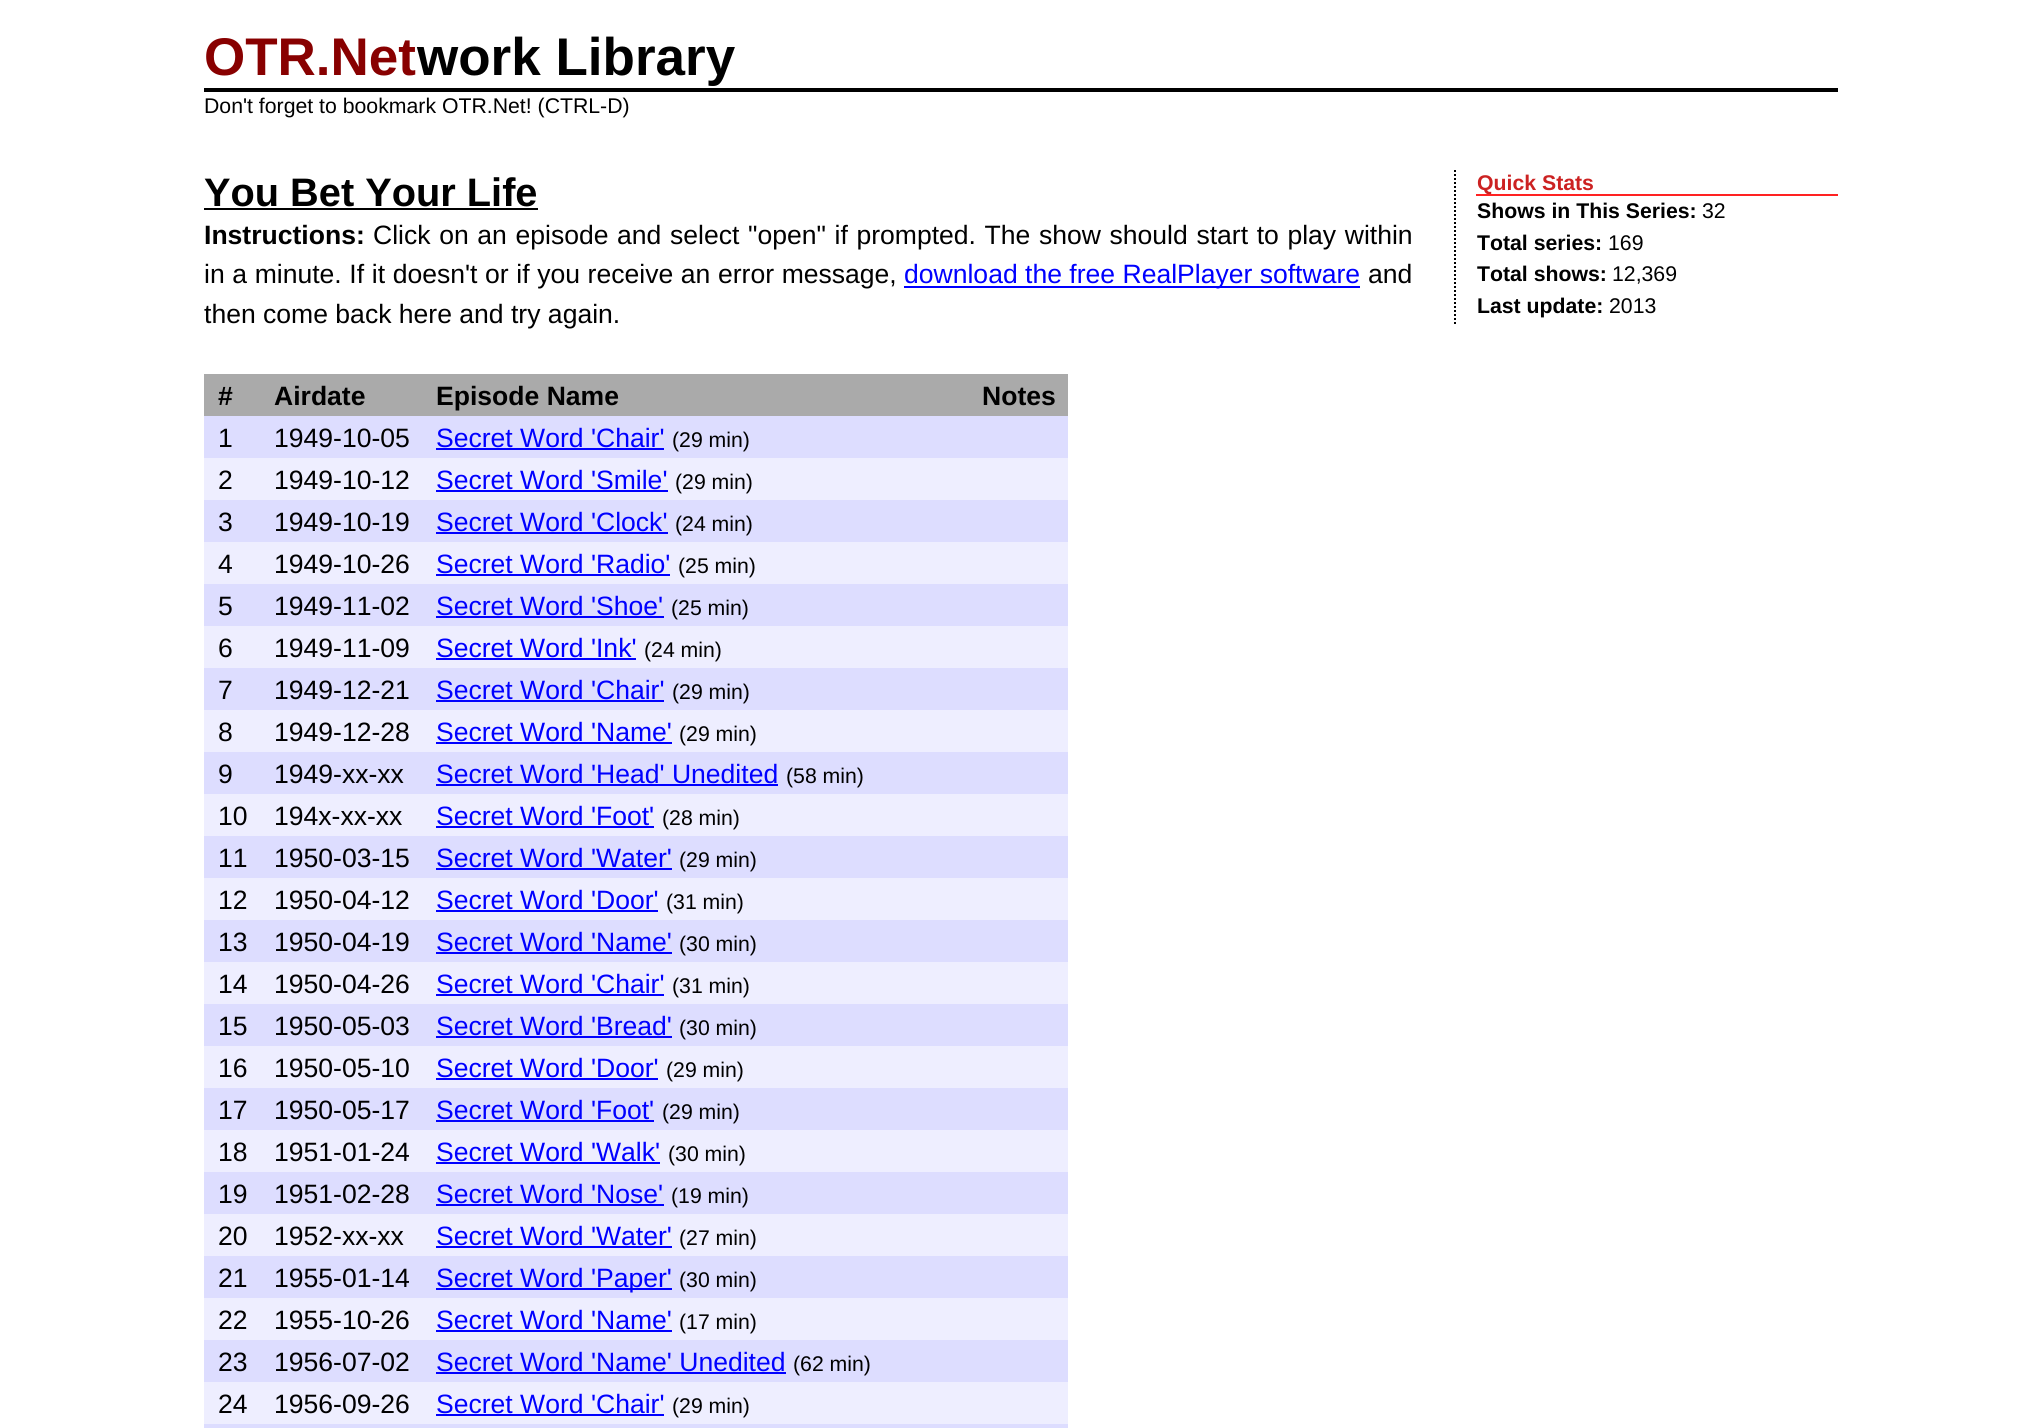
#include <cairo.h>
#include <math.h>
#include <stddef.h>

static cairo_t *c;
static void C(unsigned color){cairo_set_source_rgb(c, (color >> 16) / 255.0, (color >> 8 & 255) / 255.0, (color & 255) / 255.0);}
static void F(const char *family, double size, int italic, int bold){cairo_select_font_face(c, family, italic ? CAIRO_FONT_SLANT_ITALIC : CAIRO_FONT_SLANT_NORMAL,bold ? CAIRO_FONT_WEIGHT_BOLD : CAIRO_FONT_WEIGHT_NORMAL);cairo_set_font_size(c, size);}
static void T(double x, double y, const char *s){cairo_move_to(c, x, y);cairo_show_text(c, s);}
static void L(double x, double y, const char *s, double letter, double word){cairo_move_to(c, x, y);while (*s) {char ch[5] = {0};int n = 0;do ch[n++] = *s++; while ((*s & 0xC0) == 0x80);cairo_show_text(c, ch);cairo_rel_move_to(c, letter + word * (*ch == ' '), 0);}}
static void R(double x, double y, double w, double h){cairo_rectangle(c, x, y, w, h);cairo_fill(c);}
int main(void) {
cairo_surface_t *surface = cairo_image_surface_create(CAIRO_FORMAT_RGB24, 2041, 1428);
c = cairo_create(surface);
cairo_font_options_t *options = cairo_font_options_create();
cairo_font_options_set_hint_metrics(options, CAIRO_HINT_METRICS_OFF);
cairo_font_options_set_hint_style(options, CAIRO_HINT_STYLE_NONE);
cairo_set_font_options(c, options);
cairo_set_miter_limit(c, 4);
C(0xffffff);
cairo_paint(c);
C(0x000000);
R(204,88,1634,4);
F("Liberation Sans",53,0,1);
C(0x880000);
T(204,75,"OTR.Net");
C(0x000000);
T(417,75,"work Library");
F("Liberation Sans",21.25,0,0);
T(204,113,"Don't forget to bookmark OTR.Net! (CTRL-D)");
F("Liberation Sans",39.75,0,1);
T(204,206,"You Bet Your Life");
R(204,208,334,2);
F("Liberation Sans",26.55,0,1);
T(204,244,"Instructions:");
F("Liberation Sans",26.55,0,0);
L(373,244,"Click on an episode and select \"open\" if prompted. The show should start to play within",0,1.25);
L(204,283,"in a minute. If it doesn't or if you receive an error message,",0,.25);
C(0x0000ff);
R(904,286,456,2);
T(904,283,"download the free RealPlayer software");
C(0x000000);
T(1368,283,"and");
T(204,323,"then come back here and try again.");
C(0xaaaaaa);
R(204,374,864,42);
F("Liberation Sans",26.55,0,1);
C(0x000000);
T(218,405,"#");
T(274,405,"Airdate");
T(436,405,"Episode Name");
T(982,405,"Notes");
C(0xddddff);
R(204,416,864,42);
F("Liberation Sans",26.55,0,0);
C(0x000000);
T(218,447,"1");
T(274,447,"1949-10-05");
C(0x0000ff);
T(436,447,"Secret Word 'Chair'");
R(436,448,228,2);
F("Liberation Sans",21.25,0,0);
C(0x000000);
T(672,447,"(29 min)");
C(0xeeeeff);
R(204,458,864,42);
F("Liberation Sans",26.55,0,0);
C(0x000000);
T(218,489,"2");
T(274,489,"1949-10-12");
C(0x0000ff);
T(436,489,"Secret Word 'Smile'");
R(436,490,232,2);
F("Liberation Sans",21.25,0,0);
C(0x000000);
T(675,489,"(29 min)");
C(0xddddff);
R(204,500,864,42);
F("Liberation Sans",26.55,0,0);
C(0x000000);
T(218,531,"3");
T(274,531,"1949-10-19");
C(0x0000ff);
T(436,531,"Secret Word 'Clock'");
R(436,532,232,2);
F("Liberation Sans",21.25,0,0);
C(0x000000);
T(675,531,"(24 min)");
C(0xeeeeff);
R(204,542,864,42);
F("Liberation Sans",26.55,0,0);
C(0x000000);
T(218,573,"4");
T(274,573,"1949-10-26");
C(0x0000ff);
T(436,573,"Secret Word 'Radio'");
R(436,574,234,2);
F("Liberation Sans",21.25,0,0);
C(0x000000);
T(678,573,"(25 min)");
C(0xddddff);
R(204,584,864,42);
F("Liberation Sans",26.55,0,0);
C(0x000000);
T(218,615,"5");
T(274,615,"1949-11-02");
C(0x0000ff);
T(436,615,"Secret Word 'Shoe'");
R(436,616,228,2);
F("Liberation Sans",21.25,0,0);
C(0x000000);
T(671,615,"(25 min)");
C(0xeeeeff);
R(204,626,864,42);
F("Liberation Sans",26.55,0,0);
C(0x000000);
T(218,657,"6");
T(274,657,"1949-11-09");
C(0x0000ff);
T(436,657,"Secret Word 'Ink'");
R(436,658,200,2);
F("Liberation Sans",21.25,0,0);
C(0x000000);
T(644,657,"(24 min)");
C(0xddddff);
R(204,668,864,42);
F("Liberation Sans",26.55,0,0);
C(0x000000);
T(218,699,"7");
T(274,699,"1949-12-21");
C(0x0000ff);
T(436,699,"Secret Word 'Chair'");
R(436,700,228,2);
F("Liberation Sans",21.25,0,0);
C(0x000000);
T(672,699,"(29 min)");
C(0xeeeeff);
R(204,710,864,42);
F("Liberation Sans",26.55,0,0);
C(0x000000);
T(218,741,"8");
T(274,741,"1949-12-28");
C(0x0000ff);
T(436,741,"Secret Word 'Name'");
R(436,742,236,2);
F("Liberation Sans",21.25,0,0);
C(0x000000);
T(679,741,"(29 min)");
C(0xddddff);
R(204,752,864,42);
F("Liberation Sans",26.55,0,0);
C(0x000000);
T(218,783,"9");
T(274,783,"1949-xx-xx");
C(0x0000ff);
T(436,783,"Secret Word 'Head' Unedited");
R(436,784,342,2);
F("Liberation Sans",21.25,0,0);
C(0x000000);
T(786,783,"(58 min)");
C(0xeeeeff);
R(204,794,864,42);
F("Liberation Sans",26.55,0,0);
C(0x000000);
T(218,825,"10");
T(274,825,"194x-xx-xx");
C(0x0000ff);
T(436,825,"Secret Word 'Foot'");
R(436,826,218,2);
F("Liberation Sans",21.25,0,0);
C(0x000000);
T(662,825,"(28 min)");
C(0xddddff);
R(204,836,864,42);
F("Liberation Sans",26.55,0,0);
C(0x000000);
T(218,867,"11");
T(274,867,"1950-03-15");
C(0x0000ff);
T(436,867,"Secret Word 'Water'");
R(436,868,236,2);
F("Liberation Sans",21.25,0,0);
C(0x000000);
T(679,867,"(29 min)");
C(0xeeeeff);
R(204,878,864,42);
F("Liberation Sans",26.55,0,0);
C(0x000000);
T(218,909,"12");
T(274,909,"1950-04-12");
C(0x0000ff);
T(436,909,"Secret Word 'Door'");
R(436,910,222,2);
F("Liberation Sans",21.25,0,0);
C(0x000000);
T(666,909,"(31 min)");
C(0xddddff);
R(204,920,864,42);
F("Liberation Sans",26.55,0,0);
C(0x000000);
T(218,951,"13");
T(274,951,"1950-04-19");
C(0x0000ff);
T(436,951,"Secret Word 'Name'");
R(436,952,236,2);
F("Liberation Sans",21.25,0,0);
C(0x000000);
T(679,951,"(30 min)");
C(0xeeeeff);
R(204,962,864,42);
F("Liberation Sans",26.55,0,0);
C(0x000000);
T(218,993,"14");
T(274,993,"1950-04-26");
C(0x0000ff);
T(436,993,"Secret Word 'Chair'");
R(436,994,228,2);
F("Liberation Sans",21.25,0,0);
C(0x000000);
T(672,993,"(31 min)");
C(0xddddff);
R(204,1004,864,42);
F("Liberation Sans",26.55,0,0);
C(0x000000);
T(218,1035,"15");
T(274,1035,"1950-05-03");
C(0x0000ff);
T(436,1035,"Secret Word 'Bread'");
R(436,1036,236,2);
F("Liberation Sans",21.25,0,0);
C(0x000000);
T(679,1035,"(30 min)");
C(0xeeeeff);
R(204,1046,864,42);
F("Liberation Sans",26.55,0,0);
C(0x000000);
T(218,1077,"16");
T(274,1077,"1950-05-10");
C(0x0000ff);
T(436,1077,"Secret Word 'Door'");
R(436,1078,222,2);
F("Liberation Sans",21.25,0,0);
C(0x000000);
T(666,1077,"(29 min)");
C(0xddddff);
R(204,1088,864,42);
F("Liberation Sans",26.55,0,0);
C(0x000000);
T(218,1119,"17");
T(274,1119,"1950-05-17");
C(0x0000ff);
T(436,1119,"Secret Word 'Foot'");
R(436,1120,218,2);
F("Liberation Sans",21.25,0,0);
C(0x000000);
T(662,1119,"(29 min)");
C(0xeeeeff);
R(204,1130,864,42);
F("Liberation Sans",26.55,0,0);
C(0x000000);
T(218,1161,"18");
T(274,1161,"1951-01-24");
C(0x0000ff);
T(436,1161,"Secret Word 'Walk'");
R(436,1162,224,2);
F("Liberation Sans",21.25,0,0);
C(0x000000);
T(668,1161,"(30 min)");
C(0xddddff);
R(204,1172,864,42);
F("Liberation Sans",26.55,0,0);
C(0x000000);
T(218,1203,"19");
T(274,1203,"1951-02-28");
C(0x0000ff);
T(436,1203,"Secret Word 'Nose'");
R(436,1204,228,2);
F("Liberation Sans",21.25,0,0);
C(0x000000);
T(671,1203,"(19 min)");
C(0xeeeeff);
R(204,1214,864,42);
F("Liberation Sans",26.55,0,0);
C(0x000000);
T(218,1245,"20");
T(274,1245,"1952-xx-xx");
C(0x0000ff);
T(436,1245,"Secret Word 'Water'");
R(436,1246,236,2);
F("Liberation Sans",21.25,0,0);
C(0x000000);
T(679,1245,"(27 min)");
C(0xddddff);
R(204,1256,864,42);
F("Liberation Sans",26.55,0,0);
C(0x000000);
T(218,1287,"21");
T(274,1287,"1955-01-14");
C(0x0000ff);
R(436,1288,236,2);
T(436,1287,"Secret Word 'Paper'");
F("Liberation Sans",21.25,0,0);
C(0x000000);
T(679,1287,"(30 min)");
C(0xeeeeff);
R(204,1298,864,42);
F("Liberation Sans",26.55,0,0);
C(0x000000);
T(218,1329,"22");
T(274,1329,"1955-10-26");
C(0x0000ff);
T(436,1329,"Secret Word 'Name'");
R(436,1330,236,2);
F("Liberation Sans",21.25,0,0);
C(0x000000);
T(679,1329,"(17 min)");
C(0xddddff);
R(204,1340,864,42);
F("Liberation Sans",26.55,0,0);
C(0x000000);
T(218,1371,"23");
T(274,1371,"1956-07-02");
C(0x0000ff);
T(436,1371,"Secret Word 'Name' Unedited");
R(436,1372,350,2);
F("Liberation Sans",21.25,0,0);
C(0x000000);
T(793,1371,"(62 min)");
C(0xeeeeff);
R(204,1382,864,42);
F("Liberation Sans",26.55,0,0);
C(0x000000);
T(218,1413,"24");
T(274,1413,"1956-09-26");
C(0x0000ff);
T(436,1413,"Secret Word 'Chair'");
R(436,1414,228,2);
F("Liberation Sans",21.25,0,0);
C(0x000000);
T(672,1413,"(29 min)");
C(0xddddff);
R(204,1424,864,4);
cairo_new_path(c);
cairo_move_to(c,1455,170);
cairo_line_to(c,1455,324);
C(0x000000);
cairo_set_dash(c,(double[]){2,2},2,0);
cairo_stroke(c);
C(0xff2222);
R(1476,194,362,2);
F("Liberation Sans",21.25,0,1);
C(0xcc2222);
T(1477,190,"Quick Stats");
C(0x000000);
T(1477,218,"Shows in This Series:");
F("Liberation Sans",21.25,0,0);
T(1702,218,"32");
F("Liberation Sans",21.25,0,1);
T(1477,250,"Total series:");
F("Liberation Sans",21.25,0,0);
T(1608,250,"169");
F("Liberation Sans",21.25,0,1);
T(1477,281,"Total shows:");
F("Liberation Sans",21.25,0,0);
T(1612,281,"12,369");
F("Liberation Sans",21.25,0,1);
T(1477,313,"Last update:");
F("Liberation Sans",21.25,0,0);
T(1609,313,"2013");
cairo_surface_write_to_png(surface, "o.png");
cairo_font_options_destroy(options);
cairo_destroy(c);
cairo_surface_destroy(surface);
return 0;
}
